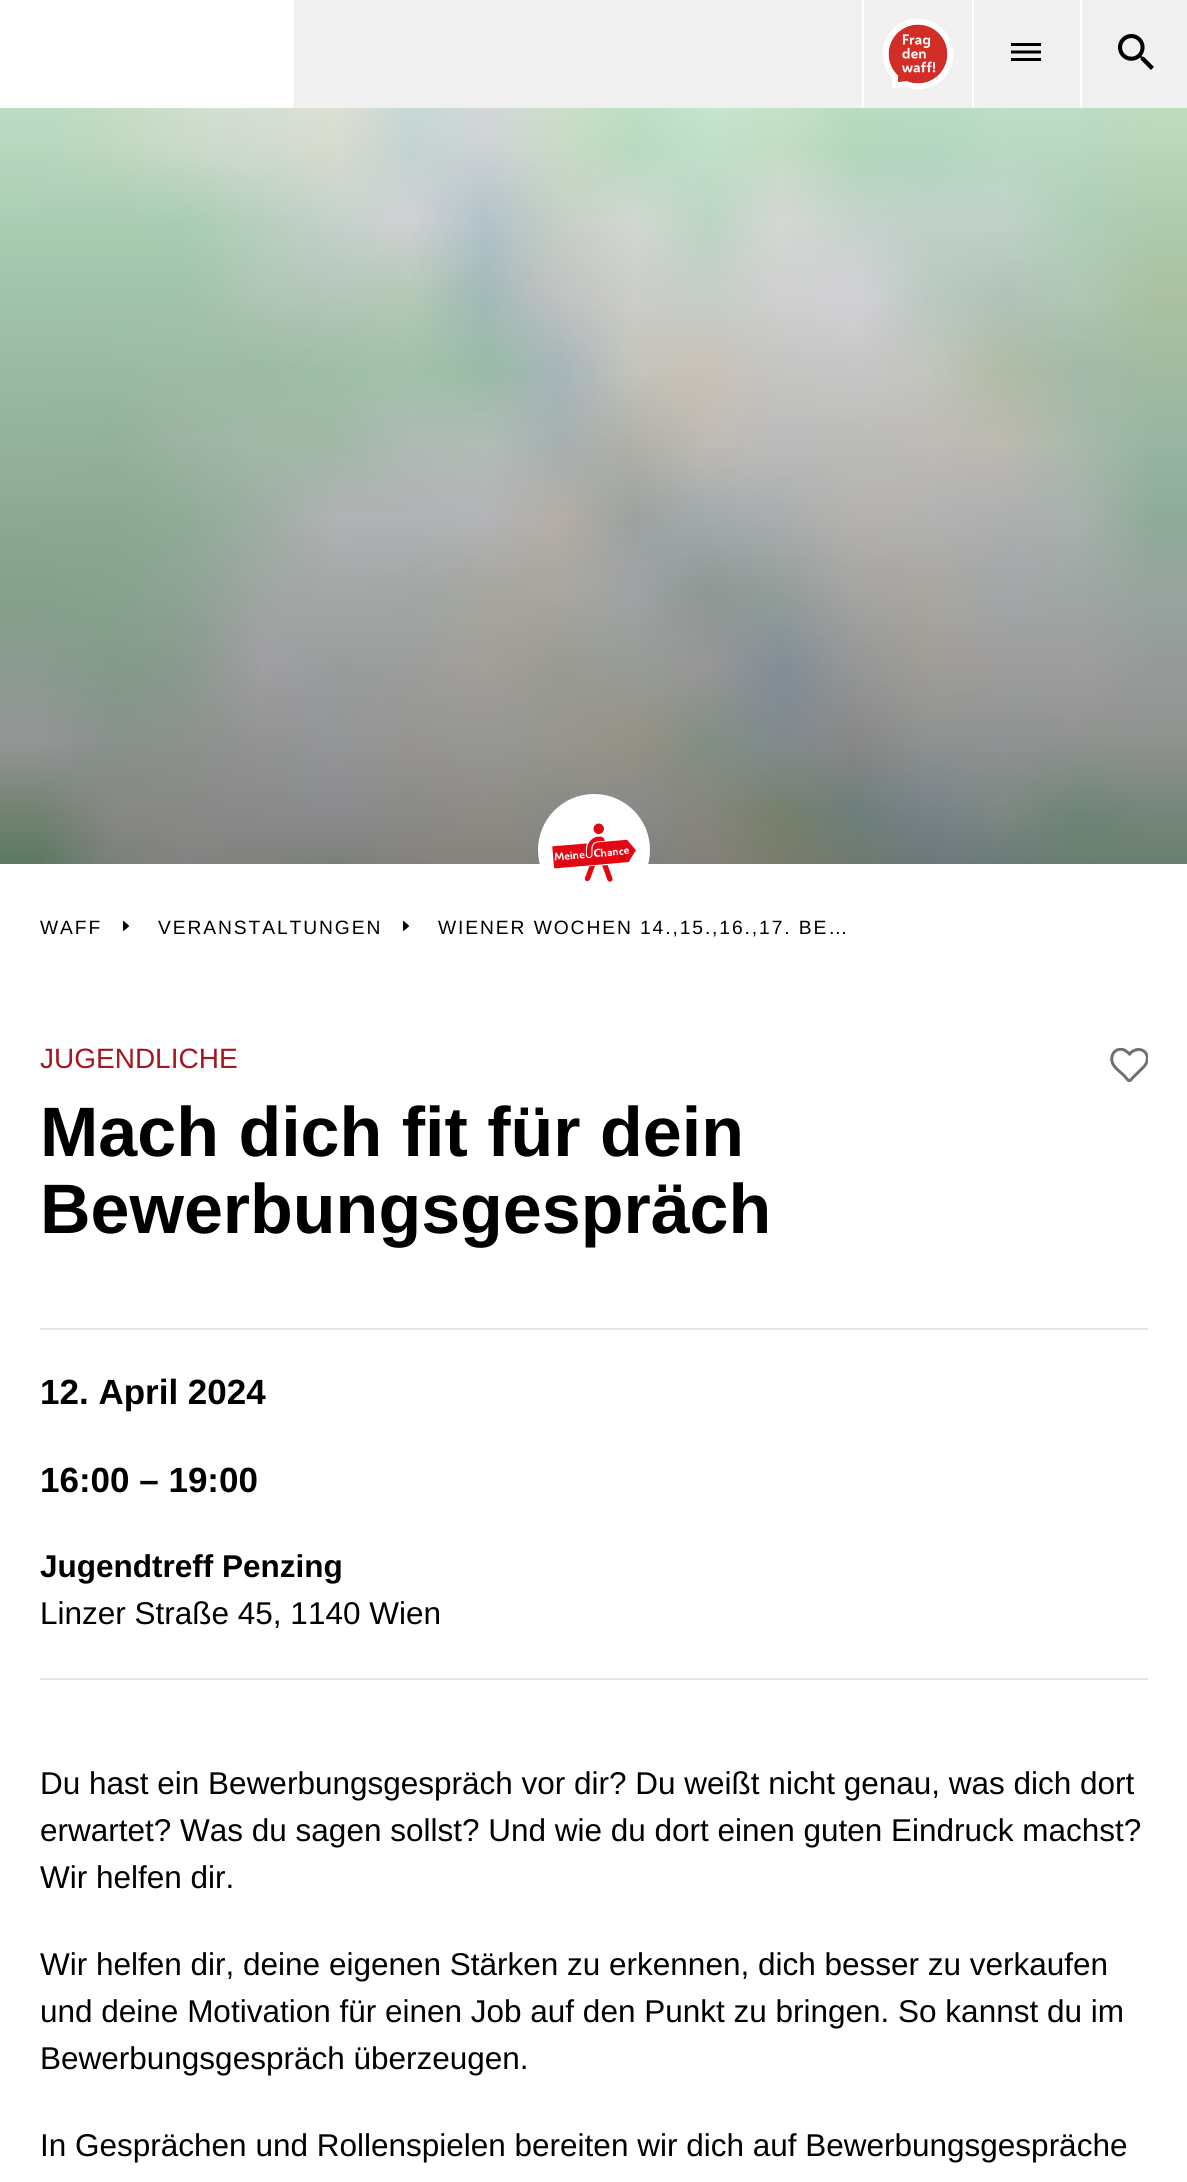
#include <cairo.h>
#include <math.h>
#include <stddef.h>

static cairo_t *c;
static void C(unsigned color){cairo_set_source_rgb(c, (color >> 16) / 255.0, (color >> 8 & 255) / 255.0, (color & 255) / 255.0);}
static void F(const char *family, double size, int italic, int bold){cairo_select_font_face(c, family, italic ? CAIRO_FONT_SLANT_ITALIC : CAIRO_FONT_SLANT_NORMAL,bold ? CAIRO_FONT_WEIGHT_BOLD : CAIRO_FONT_WEIGHT_NORMAL);cairo_set_font_size(c, size);}
static void T(double x, double y, const char *s){cairo_move_to(c, x, y);cairo_show_text(c, s);}
static void L(double x, double y, const char *s, double letter, double word){cairo_move_to(c, x, y);while (*s) {char ch[5] = {0};int n = 0;do ch[n++] = *s++; while ((*s & 0xC0) == 0x80);cairo_show_text(c, ch);cairo_rel_move_to(c, letter + word * (*ch == ' '), 0);}}
static void R(double x, double y, double w, double h){cairo_rectangle(c, x, y, w, h);cairo_fill(c);}
static void I(const char *path, double x, double y, double w, double h){cairo_surface_t *image = cairo_image_surface_create_from_png(path);cairo_save(c);cairo_set_source_surface(c, image, x, y);cairo_rectangle(c, x, y, w, h);cairo_fill(c);cairo_restore(c);cairo_surface_destroy(image);}
int main(void) {
cairo_surface_t *surface = cairo_image_surface_create(CAIRO_FORMAT_RGB24, 1187, 2182);
c = cairo_create(surface);
cairo_font_options_t *options = cairo_font_options_create();
cairo_font_options_set_hint_metrics(options, CAIRO_HINT_METRICS_OFF);
cairo_font_options_set_hint_style(options, CAIRO_HINT_STYLE_NONE);
cairo_set_font_options(c, options);
cairo_set_miter_limit(c, 4);
C(0xffffff);
cairo_paint(c);
C(0xf0f0f0);
R(294,0,893,108);
C(0xffffff);
R(862,0,2,108);
I("1.png",882,18,72,72);
R(972,0,2,108);
I("2.png",1011,43,30,18);
R(1080,0,2,108);
I("3.png",1118,34,36,36);
I("4.png",0,108,1187,756);
cairo_arc(c,594,850,56,0,2 * M_PI);
cairo_fill(c);
I("5.png",552,823,84,59);
F("Liberation Sans",19.25,0,0);
C(0x000000);
L(40,934,"WAFF",1.9,0);
I("6.png",123,921,6,10);
L(158,934,"VERANSTALTUNGEN",1.9,0);
I("6.png",403,921,6,10);
L(438,934,"WIENER WOCHEN 14.,15.,16.,17. BE…",1.9,0);
F("Liberation Sans",28,0,0);
C(0xa31820);
T(40,1068,"JUGENDLICHE");
cairo_save(c);
cairo_rectangle(c,1110,1048,38,34);
cairo_clip(c);
cairo_new_path(c);
cairo_move_to(c,1145,1052);
cairo_curve_to(c,1140,1047.5,1133.5,1049.5,1129.5,1054);
cairo_curve_to(c,1127.5,1052,1125.5,1050.5,1123,1049.5);
cairo_curve_to(c,1113.5,1047.5,1109,1058,1113.5,1065);
cairo_curve_to(c,1116.5,1069.5,1121,1072.5,1124.5,1076);
cairo_curve_to(c,1129,1081,1128.5,1082.5,1132.5,1078);
cairo_line_to(c,1144.5,1066);
cairo_curve_to(c,1148,1062,1148.5,1056,1145,1052);
C(0x707070);
cairo_set_line_width(c,3);
cairo_stroke(c);
cairo_restore(c);
F("Liberation Sans",70,0,1);
C(0x000000);
T(40,1156,"Mach dich fit für dein");
T(40,1233,"Bewerbungsgespräch");
C(0xe6e6e6);
R(40,1328,1108,2);
R(40,1678,1108,2);
F("Liberation Sans",35,0,1);
C(0x000000);
T(40,1404,"12. April 2024");
T(40,1492,"16:00 – 19:00");
F("Liberation Sans",31.5,0,1);
T(40,1577,"Jugendtreff Penzing");
F("Liberation Sans",31.5,0,0);
T(40,1624,"Linzer Straße 45, 1140 Wien");
T(40,1794,"Du hast ein Bewerbungsgespräch vor dir? Du weißt nicht genau, was dich dort");
T(40,1841,"erwartet? Was du sagen sollst? Und wie du dort einen guten Eindruck machst?");
T(40,1888,"Wir helfen dir.");
T(40,1975,"Wir helfen dir, deine eigenen Stärken zu erkennen, dich besser zu verkaufen");
T(40,2022,"und deine Motivation für einen Job auf den Punkt zu bringen. So kannst du im");
T(40,2069,"Bewerbungsgespräch überzeugen.");
T(40,2156,"In Gesprächen und Rollenspielen bereiten wir dich auf Bewerbungsgespräche");
cairo_surface_write_to_png(surface, "o.png");
cairo_font_options_destroy(options);
cairo_destroy(c);
cairo_surface_destroy(surface);
return 0;
}
